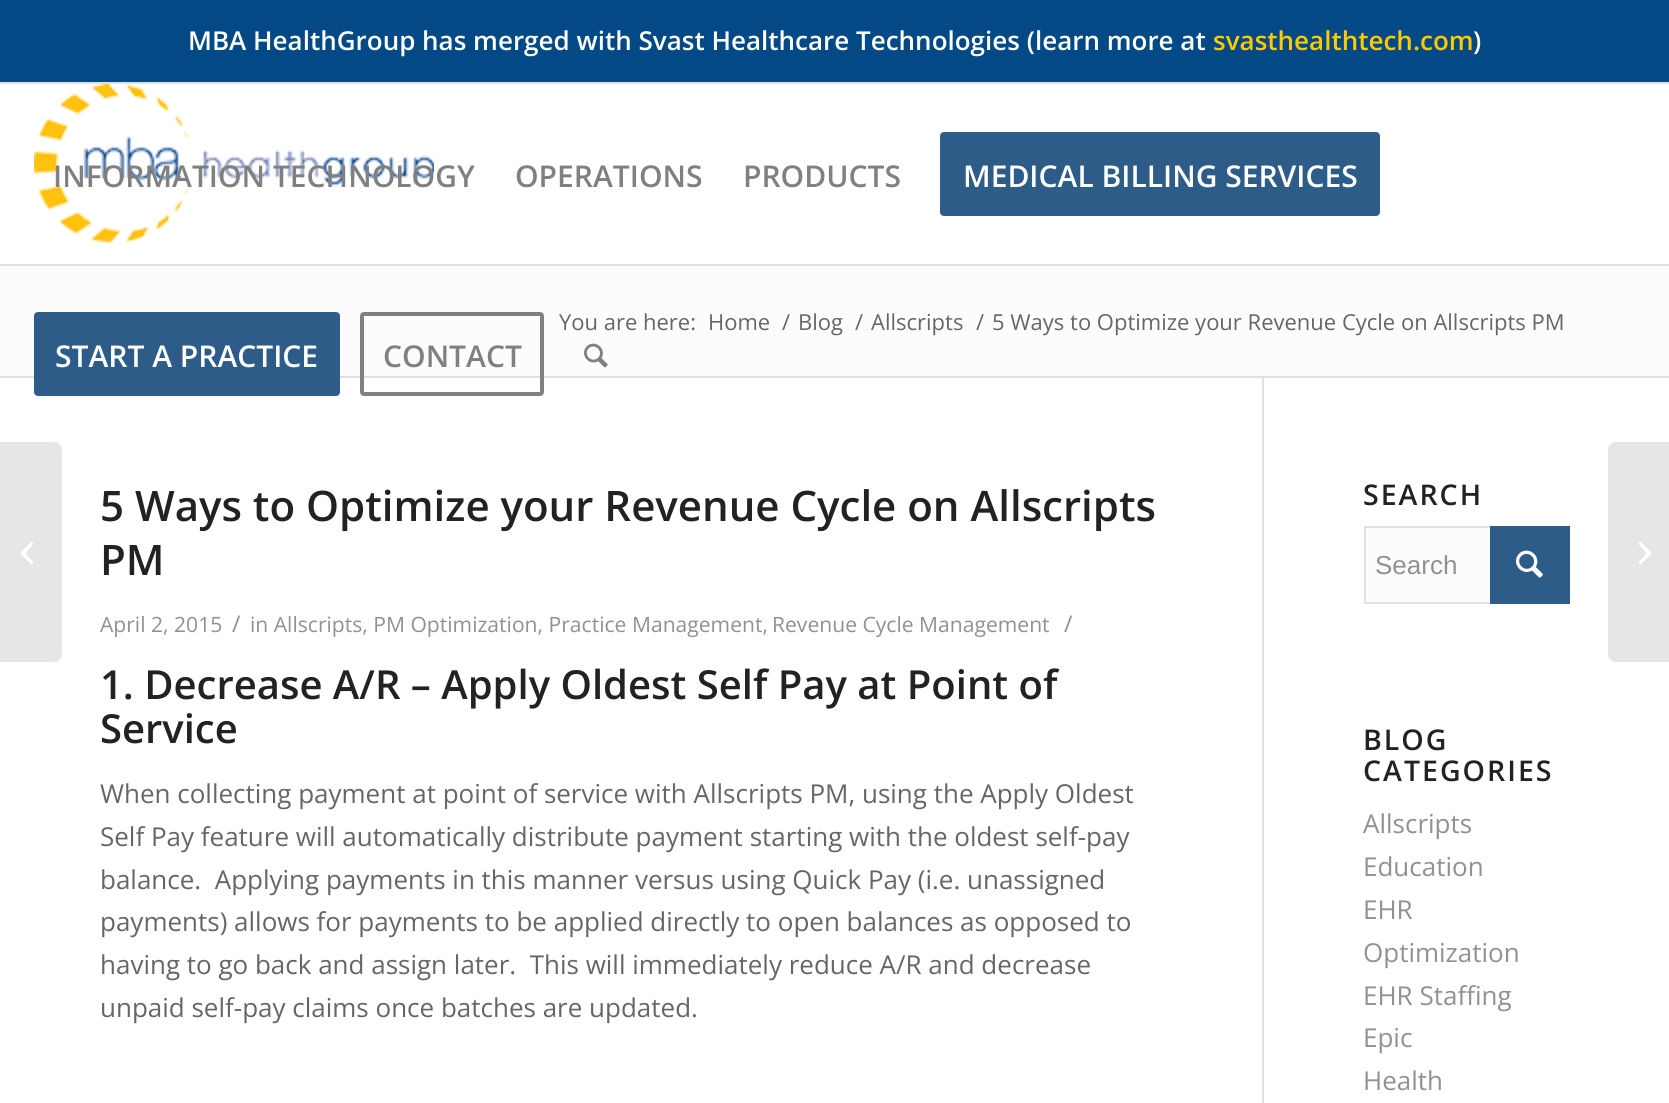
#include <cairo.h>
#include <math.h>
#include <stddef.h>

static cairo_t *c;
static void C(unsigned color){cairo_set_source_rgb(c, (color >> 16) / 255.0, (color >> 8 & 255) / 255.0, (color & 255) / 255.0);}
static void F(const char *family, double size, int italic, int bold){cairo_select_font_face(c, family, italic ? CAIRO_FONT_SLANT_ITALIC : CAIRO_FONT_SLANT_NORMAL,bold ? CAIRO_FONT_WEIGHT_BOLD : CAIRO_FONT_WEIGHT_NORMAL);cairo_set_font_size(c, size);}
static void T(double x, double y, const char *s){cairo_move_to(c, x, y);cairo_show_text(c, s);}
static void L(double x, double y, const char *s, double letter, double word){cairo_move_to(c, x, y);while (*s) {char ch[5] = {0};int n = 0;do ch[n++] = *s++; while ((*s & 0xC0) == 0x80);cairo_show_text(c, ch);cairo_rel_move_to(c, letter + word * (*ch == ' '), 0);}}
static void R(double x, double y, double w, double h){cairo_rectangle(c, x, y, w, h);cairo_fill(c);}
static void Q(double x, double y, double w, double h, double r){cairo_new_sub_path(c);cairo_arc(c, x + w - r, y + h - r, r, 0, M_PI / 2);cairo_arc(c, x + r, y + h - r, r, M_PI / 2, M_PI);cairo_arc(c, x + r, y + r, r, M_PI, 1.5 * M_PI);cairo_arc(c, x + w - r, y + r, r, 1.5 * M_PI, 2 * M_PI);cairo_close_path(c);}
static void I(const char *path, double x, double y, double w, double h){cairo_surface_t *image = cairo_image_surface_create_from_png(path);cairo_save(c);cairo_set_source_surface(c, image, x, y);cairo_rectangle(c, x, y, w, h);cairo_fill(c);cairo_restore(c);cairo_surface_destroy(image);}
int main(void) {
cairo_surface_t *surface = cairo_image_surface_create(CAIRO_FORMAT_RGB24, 1669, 1103);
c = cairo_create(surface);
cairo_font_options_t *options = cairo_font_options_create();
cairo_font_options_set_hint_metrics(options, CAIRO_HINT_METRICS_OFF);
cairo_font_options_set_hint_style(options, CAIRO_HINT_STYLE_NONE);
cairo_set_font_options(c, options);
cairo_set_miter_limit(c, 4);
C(0xffffff);
cairo_paint(c);
C(0x024985);
R(0,0,1669,82);
F("Open Sans SemiBold",26,0,0);
C(0xffffff);
T(188,50,"MBA HealthGroup has merged with Svast Healthcare Technologies (learn more at");
C(0xffcb00);
T(1213,50,"svasthealthtech.com");
C(0xffffff);
T(1473,50,")");
C(0xe1e1e1);
R(0,82,1669,2);
R(0,264,1669,2);
I("1.png",34,84,400,159);
F("Open Sans SemiBold",30,0,0);
C(0x808080);
T(53,187,"INFORMATION TECHNOLOGY");
T(515,187,"OPERATIONS");
T(743,187,"PRODUCTS");
C(0x2d5c88);
Q(942,134,436,80,2);
cairo_fill_preserve(c);
cairo_set_line_width(c,4);
cairo_stroke(c);
C(0xffffff);
T(963,187,"MEDICAL BILLING SERVICES");
C(0xfcfcfc);
R(0,266,1669,110);
C(0xe1e1e1);
R(0,376,1669,2);
C(0x2d5c88);
Q(36,314,302,80,2);
cairo_fill_preserve(c);
cairo_stroke(c);
C(0xffffff);
T(55,367,"START A PRACTICE");
Q(362,314,180,80,2);
C(0x808080);
cairo_stroke(c);
T(383,367,"CONTACT");
I("2.png",584,343,24,25);
C(0xe6e6e6);
cairo_new_path(c);
cairo_move_to(c,0,442);
cairo_line_to(c,54,442);
cairo_curve_to(c,58.5,442,62,445.5,62,450);
cairo_line_to(c,62,654);
cairo_curve_to(c,62,658.5,58.5,662,54,662);
cairo_line_to(c,0,662);
cairo_close_path(c);
cairo_fill(c);
I("3.png",20,542,14,23);
F("Open Sans",22,0,0);
C(0x666666);
T(559,330,"You are here:");
T(708,330,"Home");
T(782,330,"/");
T(798,330,"Blog");
T(855,330,"/");
T(871,330,"Allscripts");
T(976,330,"/");
T(992,330,"5 Ways to Optimize your Revenue Cycle on Allscripts PM");
C(0xe1e1e1);
R(1262,378,2,725);
F("Open Sans SemiBold",42,0,0);
C(0x222222);
T(100,521,"5 Ways to Optimize your Revenue Cycle on Allscripts");
T(100,575,"PM");
F("Open Sans",21.1,0,0);
C(0x919191);
T(100,632,"April 2, 2015");
F("Open Sans",23,0,0);
T(232,632,"/");
F("Open Sans",21.1,0,0);
T(250,632,"in Allscripts, PM Optimization, Practice Management,");
T(772,632,"Revenue Cycle Management");
F("Open Sans",23,0,0);
T(1064,632,"/");
F("Open Sans SemiBold",40,0,0);
C(0x222222);
T(100,699,"1. Decrease A/R – Apply Oldest Self Pay at Point of");
T(100,743,"Service");
F("Open Sans",26,0,0);
C(0x666666);
T(100,803,"When collecting payment at point of service with Allscripts PM, using the Apply Oldest");
T(100,846,"Self Pay feature will automatically distribute payment starting with the oldest self-pay");
T(100,889,"balance.  Applying payments in this manner versus using Quick Pay (i.e. unassigned");
T(100,931,"payments) allows for payments to be applied directly to open balances as opposed to");
T(100,974,"having to go back and assign later.  This will immediately reduce A/R and decrease");
T(100,1017,"unpaid self-pay claims once batches are updated.");
F("Open Sans SemiBold",28.5,0,0);
C(0x222222);
L(1363,505,"SEARCH",2,0);
C(0xfcfcfc);
R(1366,528,124,74);
cairo_rectangle(c,1365,527,204,76);
C(0xe1e1e1);
cairo_set_line_width(c,2);
cairo_stroke(c);
F("Liberation Sans",26,0,0);
C(0x919191);
T(1375,574,"Search");
C(0x2d5c88);
R(1490,526,80,78);
I("4.png",1516,550,27,28);
F("Open Sans SemiBold",28.5,0,0);
C(0x222222);
L(1363,750,"BLOG",2,0);
L(1363,781,"CATEGORIES",2,0);
F("Open Sans",26,0,0);
C(0x919191);
T(1363,833,"Allscripts");
T(1363,876,"Education");
T(1363,919,"EHR");
T(1363,962,"Optimization");
T(1363,1005,"EHR Staffing");
T(1363,1047,"Epic");
T(1363,1090,"Health");
C(0xe6e6e6);
cairo_new_path(c);
cairo_move_to(c,1616,442);
cairo_line_to(c,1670,442);
cairo_line_to(c,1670,662);
cairo_line_to(c,1616,662);
cairo_curve_to(c,1611.5,662,1608,658.5,1608,654);
cairo_line_to(c,1608,450);
cairo_curve_to(c,1608,445.5,1611.5,442,1616,442);
cairo_close_path(c);
cairo_fill(c);
I("5.png",1638,542,14,23);
cairo_surface_write_to_png(surface, "o.png");
cairo_font_options_destroy(options);
cairo_destroy(c);
cairo_surface_destroy(surface);
return 0;
}
